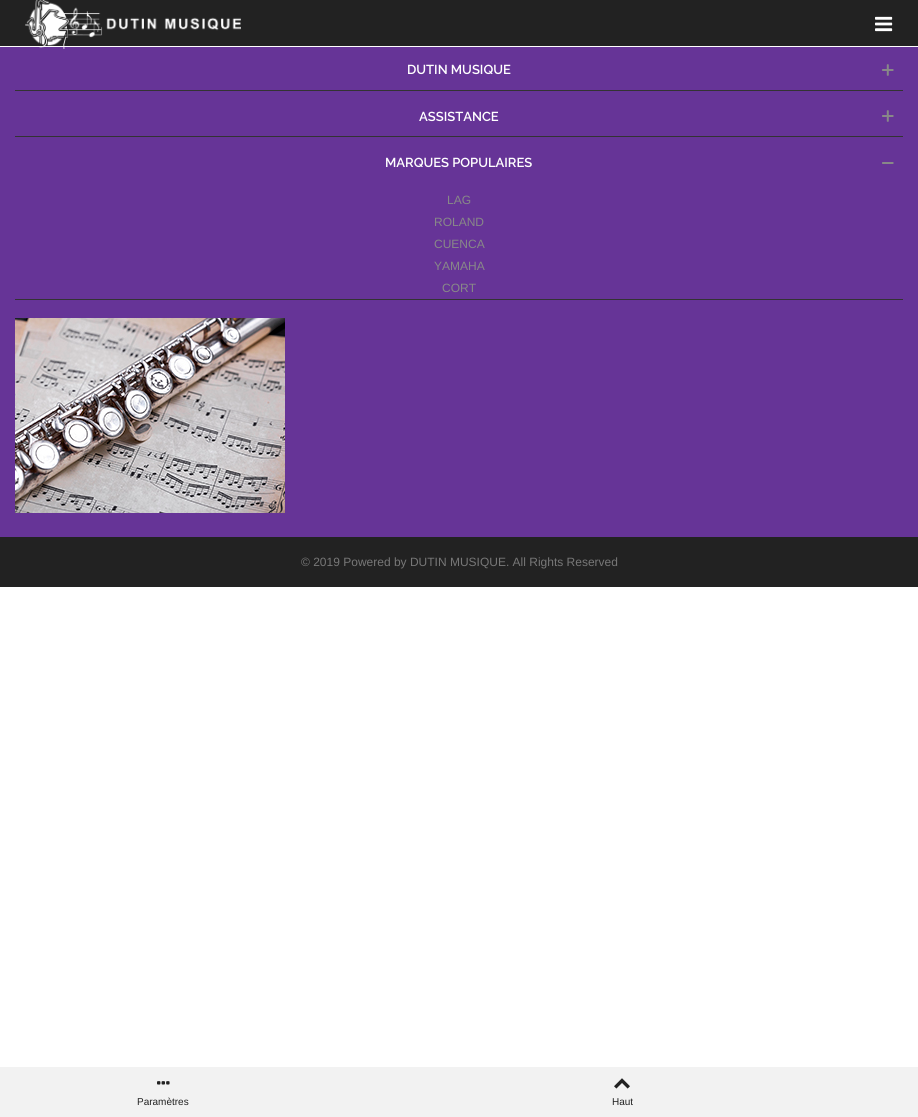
#include <cairo.h>
#include <math.h>
#include <stddef.h>

static cairo_t *c;
static void C(unsigned color){cairo_set_source_rgb(c, (color >> 16) / 255.0, (color >> 8 & 255) / 255.0, (color & 255) / 255.0);}
static void F(const char *family, double size, int italic, int bold){cairo_select_font_face(c, family, italic ? CAIRO_FONT_SLANT_ITALIC : CAIRO_FONT_SLANT_NORMAL,bold ? CAIRO_FONT_WEIGHT_BOLD : CAIRO_FONT_WEIGHT_NORMAL);cairo_set_font_size(c, size);}
static void T(double x, double y, const char *s){cairo_move_to(c, x, y);cairo_show_text(c, s);}
static void R(double x, double y, double w, double h){cairo_rectangle(c, x, y, w, h);cairo_fill(c);}
static void I(const char *path, double x, double y, double w, double h){cairo_surface_t *image = cairo_image_surface_create_from_png(path);cairo_save(c);cairo_set_source_surface(c, image, x, y);cairo_rectangle(c, x, y, w, h);cairo_fill(c);cairo_restore(c);cairo_surface_destroy(image);}
int main(void) {
cairo_surface_t *surface = cairo_image_surface_create(CAIRO_FORMAT_RGB24, 918, 1117);
c = cairo_create(surface);
cairo_font_options_t *options = cairo_font_options_create();
cairo_font_options_set_hint_metrics(options, CAIRO_HINT_METRICS_OFF);
cairo_font_options_set_hint_style(options, CAIRO_HINT_STYLE_NONE);
cairo_set_font_options(c, options);
cairo_set_miter_limit(c, 4);
C(0xffffff);
cairo_paint(c);
C(0x222222);
R(0,0,918,46);
C(0x663497);
R(0,47,918,490);
I("1.png",25,0,216,49);
I("2.png",875,16,18,16);
C(0x333333);
R(15,90,888,1);
F("Raleway SemiBold",13,0,0);
C(0xffffff);
T(407,74,"DUTIN MUSIQUE");
I("3.png",882,64,12,12);
C(0x333333);
R(15,136,888,1);
C(0xffffff);
T(419,121,"ASSISTANCE");
I("3.png",882,110,12,12);
T(385,167,"MARQUES POPULAIRES");
I("4.png",882,162,12,2);
C(0x333333);
R(15,299,888,1);
F("Liberation Sans",12,0,0);
C(0x888888);
T(447,204,"LAG");
T(434,226,"ROLAND");
T(434,248,"CUENCA");
T(434,270,"YAMAHA");
T(442,292,"CORT");
I("5.png",15,318,270,195);
C(0x222222);
R(0,537,918,50);
C(0x777777);
T(301,566,"© 2019 Powered by DUTIN MUSIQUE. All Rights Reserved");
C(0xf2f2f2);
R(0,1067,918,50);
I("6.png",157,1081,13,4);
F("Liberation Sans",10,0,0);
C(0x222222);
T(137,1105,"Paramètres");
I("7.png",614,1078,16,11);
T(612,1105,"Haut");
cairo_surface_write_to_png(surface, "o.png");
cairo_font_options_destroy(options);
cairo_destroy(c);
cairo_surface_destroy(surface);
return 0;
}
